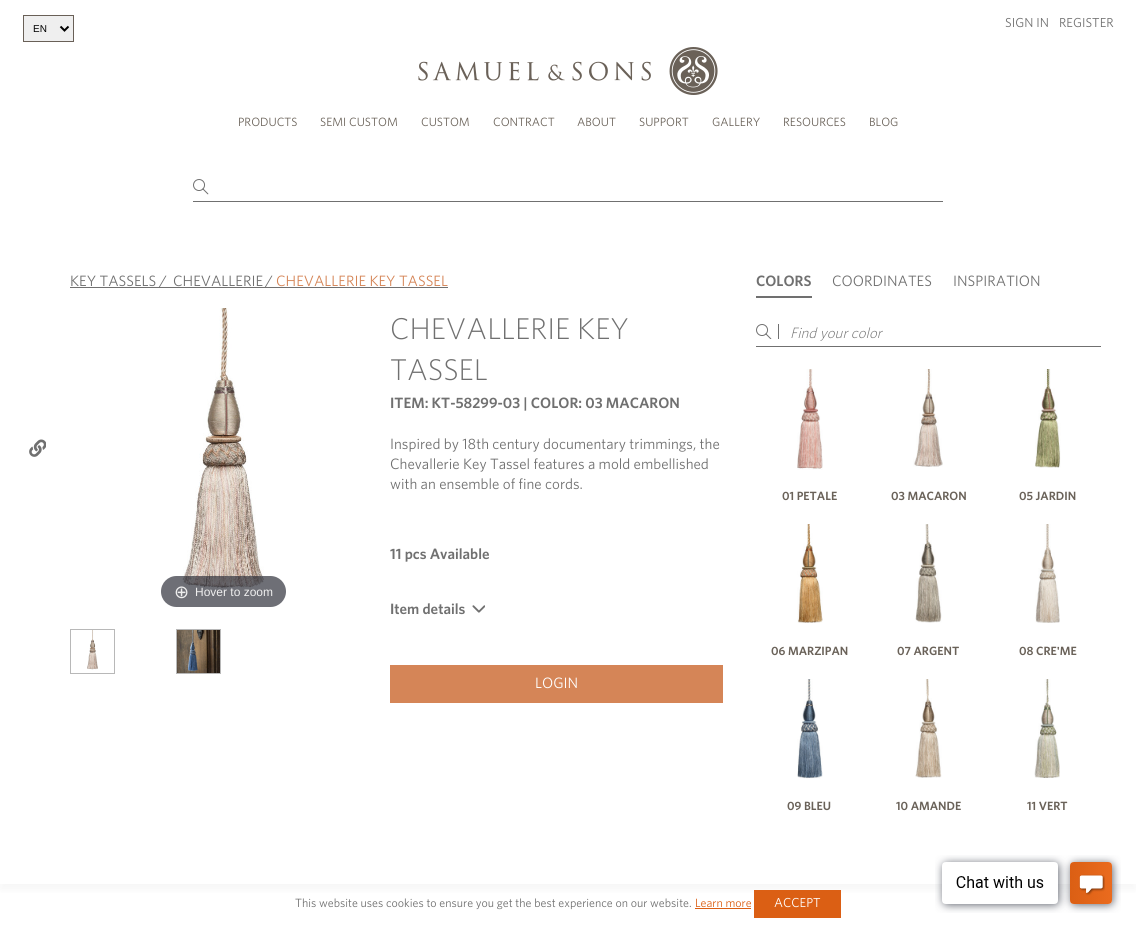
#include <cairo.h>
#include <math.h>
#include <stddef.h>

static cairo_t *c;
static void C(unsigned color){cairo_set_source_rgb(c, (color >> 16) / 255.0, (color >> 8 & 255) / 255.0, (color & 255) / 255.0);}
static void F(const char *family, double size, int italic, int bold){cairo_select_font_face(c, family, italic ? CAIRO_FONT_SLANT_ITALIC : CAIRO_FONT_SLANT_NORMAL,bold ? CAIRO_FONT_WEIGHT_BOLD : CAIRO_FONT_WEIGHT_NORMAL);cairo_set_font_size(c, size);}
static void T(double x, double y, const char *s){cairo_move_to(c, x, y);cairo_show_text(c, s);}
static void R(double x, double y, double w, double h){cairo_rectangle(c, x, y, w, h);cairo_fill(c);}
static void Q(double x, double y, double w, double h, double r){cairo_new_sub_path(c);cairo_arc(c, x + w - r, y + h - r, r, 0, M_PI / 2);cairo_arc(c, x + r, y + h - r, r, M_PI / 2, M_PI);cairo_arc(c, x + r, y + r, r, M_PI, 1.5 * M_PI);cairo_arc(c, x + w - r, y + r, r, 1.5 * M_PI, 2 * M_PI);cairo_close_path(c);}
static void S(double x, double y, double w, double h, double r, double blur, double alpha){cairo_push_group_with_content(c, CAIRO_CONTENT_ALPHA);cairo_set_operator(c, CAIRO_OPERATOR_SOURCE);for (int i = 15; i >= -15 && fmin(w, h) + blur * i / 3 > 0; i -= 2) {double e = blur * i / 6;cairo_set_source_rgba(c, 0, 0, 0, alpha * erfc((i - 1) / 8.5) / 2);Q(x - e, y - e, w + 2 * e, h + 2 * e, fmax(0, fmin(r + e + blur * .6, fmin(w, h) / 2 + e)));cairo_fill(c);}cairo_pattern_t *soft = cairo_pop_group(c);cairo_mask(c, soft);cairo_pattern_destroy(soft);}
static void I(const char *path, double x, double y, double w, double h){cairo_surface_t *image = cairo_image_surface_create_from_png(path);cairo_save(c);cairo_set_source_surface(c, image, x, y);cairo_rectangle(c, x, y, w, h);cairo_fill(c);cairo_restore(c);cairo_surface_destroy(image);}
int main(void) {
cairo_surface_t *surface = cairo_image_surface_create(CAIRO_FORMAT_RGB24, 1136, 928);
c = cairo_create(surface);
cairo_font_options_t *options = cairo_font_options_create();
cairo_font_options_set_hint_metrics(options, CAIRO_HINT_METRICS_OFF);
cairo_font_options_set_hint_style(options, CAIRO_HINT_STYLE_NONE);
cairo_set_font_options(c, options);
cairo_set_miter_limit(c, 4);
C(0xffffff);
cairo_paint(c);
C(0xefefef);
cairo_rectangle(c,23.5,15.5,50,26);
cairo_fill_preserve(c);
C(0x696057);
cairo_set_line_width(c,1);
cairo_stroke(c);
cairo_new_path(c);
cairo_move_to(c,60.5,26.5);
cairo_line_to(c,64.5,30.5);
cairo_line_to(c,68.5,26.5);
C(0x000000);
cairo_set_line_width(c,2);
cairo_stroke(c);
F("Liberation Sans",10,0,0);
T(33,32,"EN");
I("1.png",418,47,300,48);
F("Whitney",13,0,0);
C(0x707070);
T(1005,27,"SIGN IN");
T(1059,27,"REGISTER");
F("Whitney",12,0,0);
C(0x6a6259);
T(238,126,"PRODUCTS");
T(320,126,"SEMI CUSTOM");
T(421,126,"CUSTOM");
T(493,126,"CONTRACT");
T(577,126,"ABOUT");
T(639,126,"SUPPORT");
T(712,126,"GALLERY");
T(783,126,"RESOURCES");
T(869,126,"BLOG");
I("2.png",193,179,16,16);
C(0x707070);
R(193,201,750,1);
cairo_save(c);
cairo_rectangle(c,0,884,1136,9);
cairo_clip(c);
C(0x000000);
S(0,228,1136,662,0,3,.16);
cairo_restore(c);
F("Whitney",15,0,0);
T(70,286,"KEY TASSELS");
R(70,287,378,1);
T(159,286,"/");
T(173,286,"CHEVALLERIE");
T(265,286,"/");
C(0xd58557);
T(276,286,"CHEVALLERIE KEY TASSEL");
I("3.png",29,439,17,18);
I("4.png",182,308,82,283);
cairo_set_source_rgba(c,0.192,0.2,0.239,0.7);
Q(161,576,125,31,15.5);
cairo_fill(c);
F("DejaVu Sans",18,0,0);
C(0xeeeeee);
T(174,598,"⊕");
F("Liberation Sans",12,0,0);
T(195,596,"Hover to zoom");
cairo_rectangle(c,70.5,629.5,44,44);
C(0xb8b8b8);
cairo_set_line_width(c,1);
cairo_stroke(c);
I("5.png",87,630,11,40);
cairo_rectangle(c,176.5,629.5,44,44);
cairo_stroke(c);
I("6.png",177,630,43,43);
F("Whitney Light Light",30,0,0);
C(0x707070);
T(390,339,"CHEVALLERIE KEY");
T(390,380,"TASSEL");
F("Whitney SemiBold",15,0,0);
T(390,408,"ITEM: KT-58299-03 | COLOR: 03 MACARON");
F("Whitney",15,0,0);
T(390,449,"Inspired by 18th century documentary trimmings, the");
T(390,469,"Chevallerie Key Tassel features a mold embellished");
T(390,489,"with an ensemble of fine cords.");
F("Whitney SemiBold",15,0,0);
T(390,559,"11 pcs Available");
T(390,614,"Item details");
I("7.png",472,605,13,8);
C(0xd58557);
R(390,665,333,38);
F("Whitney",15,0,0);
C(0xffffff);
T(535,688,"LOGIN");
F("Whitney SemiBold",15,0,0);
C(0x707070);
T(756,286,"COLORS");
R(756,296,56,2);
F("Whitney",15,0,0);
T(832,286,"COORDINATES");
T(953,286,"INSPIRATION");
R(778,324,1,15);
I("8.png",756,324,16,15);
R(756,346,345,1);
F("Whitney Light Light",15,1,0);
T(790,338,"Find your color");
I("9.png",797,369,26,101);
F("Whitney SemiBold",12,0,0);
C(0x6a6259);
T(782,500,"01 PETALE");
I("10.png",913,369,30,98);
T(891,500,"03 MACARON");
I("11.png",1035,369,26,99);
T(1019,500,"05 JARDIN");
I("12.png",797,524,26,99);
T(771,655,"06 MARZIPAN");
I("13.png",915,524,27,99);
T(897,655,"07 ARGENT");
I("14.png",1035,524,25,99);
T(1019,655,"08 CRE'ME");
I("15.png",797,679,26,100);
T(787,810,"09 BLEU");
I("16.png",915,679,27,99);
T(896,810,"10 AMANDE");
I("17.png",1034,679,26,99);
T(1027,810,"11 VERT");
cairo_set_source_rgba(c,1,1,1,0.8);
R(0,884,1136,10);
F("Whitney",12,0,0);
C(0x707070);
T(295,907,"This website uses cookies to ensure you get the best experience on our website.");
C(0xdb5f14);
T(695,907,"Learn more");
R(695,908,56,1);
R(754,890,87,28);
F("Whitney",13,0,0);
C(0xffffff);
T(774,907,"ACCEPT");
I("18.png",935,855,186,58);
cairo_surface_write_to_png(surface, "o.png");
cairo_font_options_destroy(options);
cairo_destroy(c);
cairo_surface_destroy(surface);
return 0;
}
